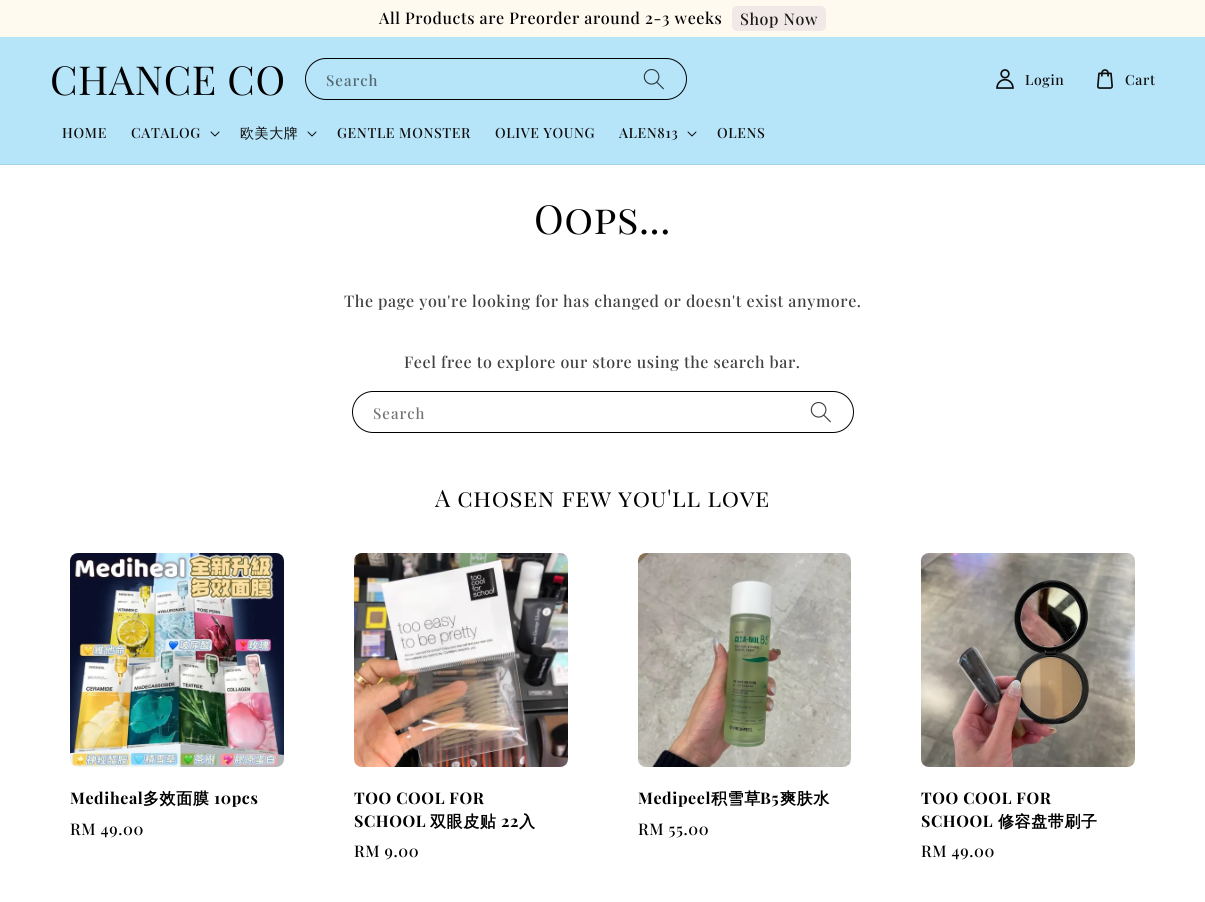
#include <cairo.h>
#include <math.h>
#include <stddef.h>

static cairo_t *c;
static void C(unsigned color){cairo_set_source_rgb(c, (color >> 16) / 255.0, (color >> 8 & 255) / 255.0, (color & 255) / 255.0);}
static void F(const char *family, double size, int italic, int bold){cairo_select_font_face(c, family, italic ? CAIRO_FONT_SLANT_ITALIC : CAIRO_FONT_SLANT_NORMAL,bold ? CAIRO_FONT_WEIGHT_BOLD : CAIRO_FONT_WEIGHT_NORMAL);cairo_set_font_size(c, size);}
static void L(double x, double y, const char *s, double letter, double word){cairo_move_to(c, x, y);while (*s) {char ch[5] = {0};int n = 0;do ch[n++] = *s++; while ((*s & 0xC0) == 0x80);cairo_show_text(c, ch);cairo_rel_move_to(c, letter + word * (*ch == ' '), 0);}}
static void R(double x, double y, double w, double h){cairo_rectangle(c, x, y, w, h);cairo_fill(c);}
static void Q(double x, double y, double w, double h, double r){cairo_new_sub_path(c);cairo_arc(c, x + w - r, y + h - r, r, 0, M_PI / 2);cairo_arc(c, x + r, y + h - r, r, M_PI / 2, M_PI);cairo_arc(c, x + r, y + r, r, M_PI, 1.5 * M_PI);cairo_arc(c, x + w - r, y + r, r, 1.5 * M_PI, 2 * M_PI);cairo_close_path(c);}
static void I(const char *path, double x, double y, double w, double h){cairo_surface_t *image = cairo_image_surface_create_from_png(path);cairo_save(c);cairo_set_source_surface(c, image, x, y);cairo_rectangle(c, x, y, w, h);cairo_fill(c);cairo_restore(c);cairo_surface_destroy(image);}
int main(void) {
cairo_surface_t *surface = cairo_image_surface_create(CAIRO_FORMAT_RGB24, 1205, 902);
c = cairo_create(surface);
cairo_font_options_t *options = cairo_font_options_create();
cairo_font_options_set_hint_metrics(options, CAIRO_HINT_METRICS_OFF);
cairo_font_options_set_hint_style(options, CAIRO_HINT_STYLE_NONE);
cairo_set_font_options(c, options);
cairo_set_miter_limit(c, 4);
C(0xffffff);
cairo_paint(c);
C(0xfffaf0);
R(0,0,1205,37);
F("Playfair Display Medium",16,0,0);
C(0x000000);
L(379,24,"All Products are Preorder around 2-3 weeks",.6,0);
C(0xf1e9e8);
Q(732,6,94,25,5);
cairo_fill(c);
C(0x1a1919);
L(740,25,"Shop Now",.6,0);
C(0xb6e4f8);
R(0,37,1205,127);
C(0xa7d2e4);
R(0,164,1205,1);
F("Playfair Display SC",40,0,0);
C(0x000000);
L(50,95,"CHANCE CO",.6,0);
Q(305.5,58.5,381,41,20.5);
cairo_set_line_width(c,1);
cairo_stroke(c);
F("Playfair Display Medium",15,0,0);
C(0x526770);
L(326,86,"Search",1,0);
I("1.png",643,69,21,21);
I("2.png",996,69,18,20);
F("Playfair Display Medium",14,0,0);
C(0x0d0c0d);
L(1025,85,"Login",.6,0);
I("3.png",1097,69,16,20);
L(1125,85,"Cart",.6,0);
L(62,138,"HOME",.6,0);
L(131,138,"CATALOG",.6,0);
I("4.png",210,131,10,6);
F("WenQuanYi Zen Hei Medium",14,0,0);
L(240,138,"欧美大牌",.6,0);
I("4.png",307,131,10,6);
F("Playfair Display Medium",14,0,0);
L(337,138,"GENTLE MONSTER",.6,0);
L(495,138,"OLIVE YOUNG",.6,0);
L(619,138,"ALEN813",.6,0);
I("4.png",687,131,10,6);
L(717,138,"OLENS",.6,0);
F("Playfair Display SC",40,0,0);
C(0x000000);
L(534,234,"Oops...",.6,0);
F("Playfair Display Medium",16,0,0);
C(0x404040);
L(344,307,"The page you're looking for has changed or doesn't exist anymore.",.6,0);
L(404,368,"Feel free to explore our store using the search bar.",.6,0);
Q(352.5,391.5,501,41,20.5);
C(0x000000);
cairo_stroke(c);
F("Playfair Display Medium",15,0,0);
C(0x737373);
L(373,419,"Search",1,0);
I("5.png",810,402,21,21);
F("Playfair Display SC",24,0,0);
C(0x000000);
L(435,507,"A chosen few you'll love",.6,0);
I("6.png",70,553,214,214);
F("Playfair Display",16,0,1);
L(70,804,"Mediheal",.6,0);
F("WenQuanYi Zen Hei",16,0,1);
L(143,804,"多效面膜",.6,0);
F("Playfair Display",16,0,1);
L(214,804,"10pcs",.6,0);
F("Playfair Display Medium",16,0,0);
L(70,835,"RM 49.00",.6,0);
I("7.png",354,553,214,214);
F("Playfair Display",16,0,1);
L(354,804,"TOO COOL FOR",.6,0);
L(354,827,"SCHOOL",.6,0);
F("WenQuanYi Zen Hei",16,0,1);
L(430,827,"双眼皮贴",.6,0);
F("Playfair Display",16,0,1);
L(501,827,"22",.6,0);
F("WenQuanYi Zen Hei",16,0,1);
L(519,827,"入",.6,0);
F("Playfair Display Medium",16,0,0);
L(354,857,"RM 9.00",.6,0);
I("8.png",638,553,213,214);
F("Playfair Display",16,0,1);
L(638,804,"Medipeel",.6,0);
F("WenQuanYi Zen Hei",16,0,1);
L(711,804,"积雪草",.6,0);
F("Playfair Display",16,0,1);
L(760,804,"B5",.6,0);
F("WenQuanYi Zen Hei",16,0,1);
L(780,804,"爽肤水",.6,0);
F("Playfair Display Medium",16,0,0);
L(638,835,"RM 55.00",.6,0);
I("9.png",921,553,214,214);
F("Playfair Display",16,0,1);
L(921,804,"TOO COOL FOR",.6,0);
L(921,827,"SCHOOL",.6,0);
F("WenQuanYi Zen Hei",16,0,1);
L(998,827,"修容盘带刷子",.6,0);
F("Playfair Display Medium",16,0,0);
L(921,857,"RM 49.00",.6,0);
cairo_surface_write_to_png(surface, "o.png");
cairo_font_options_destroy(options);
cairo_destroy(c);
cairo_surface_destroy(surface);
return 0;
}
